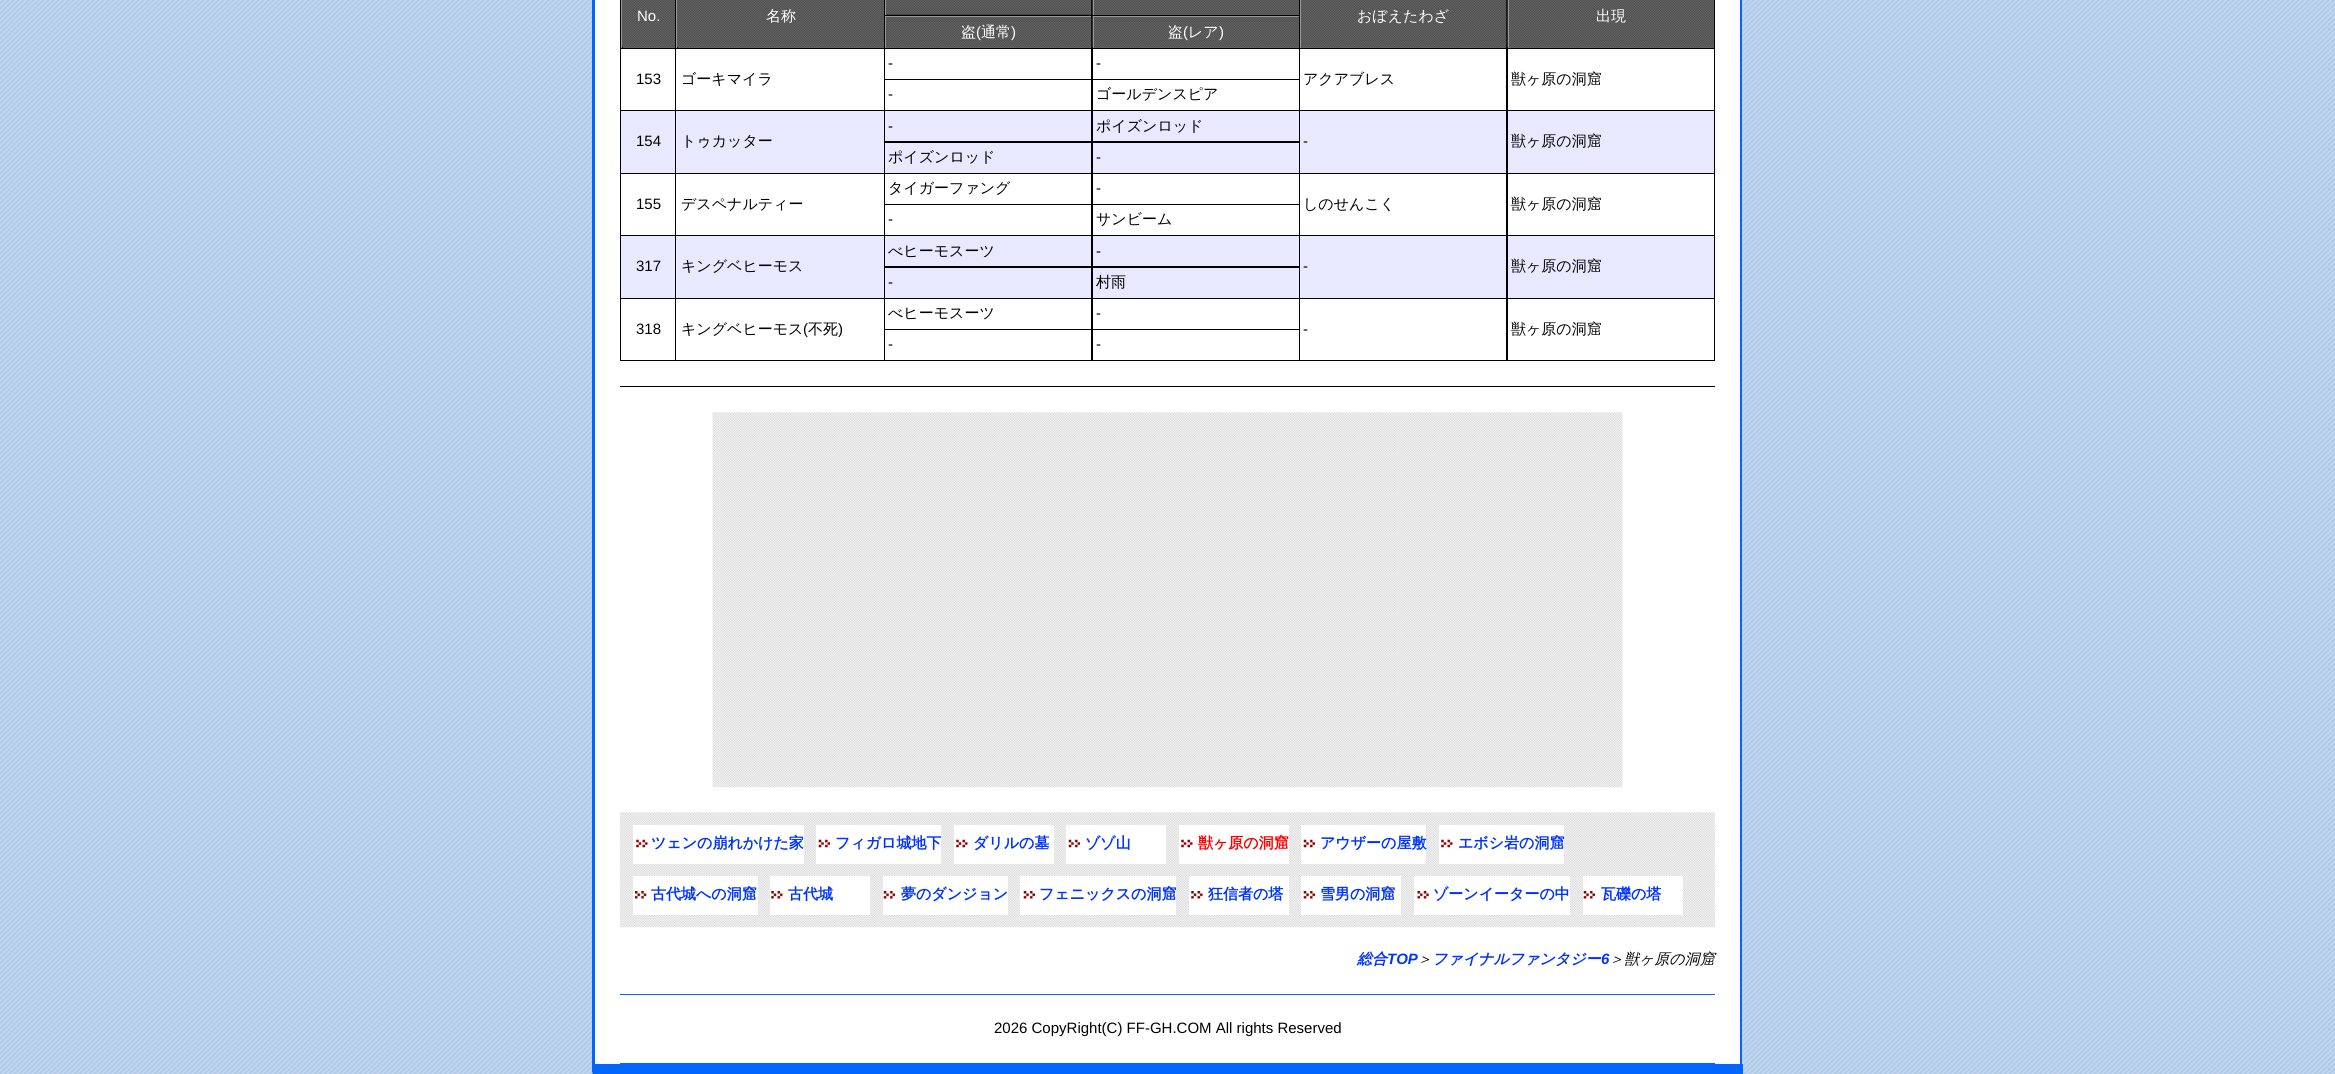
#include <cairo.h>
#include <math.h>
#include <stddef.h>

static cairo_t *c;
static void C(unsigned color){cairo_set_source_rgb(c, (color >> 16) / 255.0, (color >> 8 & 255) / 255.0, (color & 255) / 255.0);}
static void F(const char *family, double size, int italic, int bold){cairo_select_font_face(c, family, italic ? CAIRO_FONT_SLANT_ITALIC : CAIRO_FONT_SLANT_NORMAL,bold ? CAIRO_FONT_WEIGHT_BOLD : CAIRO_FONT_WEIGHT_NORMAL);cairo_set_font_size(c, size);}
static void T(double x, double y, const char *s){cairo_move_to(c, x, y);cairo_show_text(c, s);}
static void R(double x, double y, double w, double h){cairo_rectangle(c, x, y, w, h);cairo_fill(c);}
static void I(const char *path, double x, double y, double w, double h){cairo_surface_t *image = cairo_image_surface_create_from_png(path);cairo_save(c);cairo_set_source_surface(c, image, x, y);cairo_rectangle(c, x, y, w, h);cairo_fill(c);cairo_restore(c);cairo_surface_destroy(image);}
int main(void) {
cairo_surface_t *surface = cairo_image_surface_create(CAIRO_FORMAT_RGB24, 2335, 1074);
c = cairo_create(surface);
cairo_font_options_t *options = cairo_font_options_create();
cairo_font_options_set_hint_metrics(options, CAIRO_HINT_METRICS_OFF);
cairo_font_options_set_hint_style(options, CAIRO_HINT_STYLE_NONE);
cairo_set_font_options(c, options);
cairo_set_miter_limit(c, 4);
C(0xffffff);
cairo_paint(c);
I("1.png",0,0,2335,1074);
C(0xffffff);
R(595,0,1145,1064);
C(0x0066ff);
cairo_new_path(c);
cairo_move_to(c,1742,-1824);
cairo_line_to(c,1742,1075);
cairo_line_to(c,1740,1064);
cairo_line_to(c,1740,-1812);
cairo_close_path(c);
cairo_fill(c);
R(593,1064,1150,10);
cairo_new_path(c);
cairo_move_to(c,592,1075);
cairo_line_to(c,592,-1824);
cairo_line_to(c,595,-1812);
cairo_line_to(c,595,1064);
cairo_close_path(c);
cairo_fill(c);
C(0x000000);
R(620,386,1095,1);
R(620,0,1095,361);
C(0x666666);
R(623,47,52,1);
I("2.png",622,0,53,48);
C(0x999999);
R(621,0,1,48);
F("Liberation Sans",15,0,0);
C(0xffffff);
T(637,21,"No.");
C(0x666666);
R(678,0,206,48);
I("3.png",677,0,207,48);
C(0x999999);
R(676,0,1,48);
F("WenQuanYi Zen Hei Medium",15,0,0);
C(0xffffff);
T(766,21,"名称");
I("4.png",886,0,206,15);
C(0x999999);
R(885,0,1,15);
C(0x666666);
R(1094,0,205,15);
I("5.png",1092,0,207,15);
C(0x999999);
R(1093,0,1,15);
C(0x666666);
R(1301,47,205,1);
I("6.png",1301,0,206,48);
C(0x999999);
R(1300,0,1,48);
C(0xffffff);
T(1357,21,"おぼえたわざ");
C(0x666666);
R(1509,0,205,48);
I("7.png",1507,0,207,48);
C(0x999999);
R(1508,0,1,48);
C(0xffffff);
T(1596,21,"出現");
C(0x666666);
R(886,47,205,1);
I("8.png",886,16,206,32);
C(0x999999);
R(885,16,206,1);
R(885,16,1,32);
C(0xffffff);
T(961,37,"盗");
F("Liberation Sans",15,0,0);
T(976,37,"(");
F("WenQuanYi Zen Hei Medium",15,0,0);
T(981,37,"通常");
F("Liberation Sans",15,0,0);
T(1011,37,")");
C(0x666666);
R(1094,18,205,30);
I("9.png",1092,16,207,32);
C(0x999999);
R(1093,16,206,1);
R(1093,16,1,32);
F("WenQuanYi Zen Hei Medium",15,0,0);
C(0xffffff);
T(1168,37,"盗");
F("Liberation Sans",15,0,0);
T(1183,37,"(");
F("WenQuanYi Zen Hei Medium",15,0,0);
T(1188,37,"レア");
F("Liberation Sans",15,0,0);
T(1219,37,")");
R(885,49,206,30);
C(0x000000);
T(888,68,"-");
C(0xffffff);
R(1093,49,206,30);
C(0x000000);
T(1096,68,"-");
C(0xffffff);
R(621,49,54,61);
C(0x000000);
T(636,84,"153");
C(0xffffff);
R(676,49,208,61);
F("WenQuanYi Zen Hei Medium",15,0,0);
C(0x000000);
T(681,84,"ゴーキマイラ");
C(0xffffff);
R(1300,49,206,61);
C(0x000000);
T(1303,84,"アクアブレス");
C(0xffffff);
R(1508,49,206,61);
C(0x000000);
T(1511,84,"獣ヶ原の洞窟");
C(0xffffff);
R(885,80,206,30);
F("Liberation Sans",15,0,0);
C(0x000000);
T(888,99,"-");
C(0xffffff);
R(1093,80,206,30);
F("WenQuanYi Zen Hei Medium",15,0,0);
C(0x000000);
T(1096,99,"ゴールデンスピア");
C(0xe8e8ff);
R(885,111,206,30);
F("Liberation Sans",15,0,0);
C(0x000000);
T(888,131,"-");
C(0xe8e8ff);
R(1093,111,206,30);
F("WenQuanYi Zen Hei Medium",15,0,0);
C(0x000000);
T(1096,131,"ポイズンロッド");
C(0xe8e8ff);
R(621,111,54,62);
F("Liberation Sans",15,0,0);
C(0x000000);
T(636,146,"154");
C(0xe8e8ff);
R(676,111,208,62);
F("WenQuanYi Zen Hei Medium",15,0,0);
C(0x000000);
T(681,146,"トゥカッター");
C(0xe8e8ff);
R(1300,111,206,62);
F("Liberation Sans",15,0,0);
C(0x000000);
T(1303,146,"-");
C(0xe8e8ff);
R(1508,111,206,62);
F("WenQuanYi Zen Hei Medium",15,0,0);
C(0x000000);
T(1511,146,"獣ヶ原の洞窟");
C(0xe8e8ff);
R(885,143,206,30);
C(0x000000);
T(888,162,"ポイズンロッド");
C(0xe8e8ff);
R(1093,143,206,30);
F("Liberation Sans",15,0,0);
C(0x000000);
T(1096,162,"-");
C(0xffffff);
R(885,174,206,30);
F("WenQuanYi Zen Hei Medium",15,0,0);
C(0x000000);
T(888,193,"タイガーファング");
C(0xffffff);
R(1093,174,206,30);
F("Liberation Sans",15,0,0);
C(0x000000);
T(1096,193,"-");
C(0xffffff);
R(621,174,54,61);
C(0x000000);
T(636,209,"155");
C(0xffffff);
R(676,174,208,61);
F("WenQuanYi Zen Hei Medium",15,0,0);
C(0x000000);
T(681,209,"デスペナルティー");
C(0xffffff);
R(1300,174,206,61);
C(0x000000);
T(1303,209,"しのせんこく");
C(0xffffff);
R(1508,174,206,61);
C(0x000000);
T(1511,209,"獣ヶ原の洞窟");
C(0xffffff);
R(885,205,206,30);
F("Liberation Sans",15,0,0);
C(0x000000);
T(888,224,"-");
C(0xffffff);
R(1093,205,206,30);
F("WenQuanYi Zen Hei Medium",15,0,0);
C(0x000000);
T(1096,224,"サンビーム");
C(0xe8e8ff);
R(885,236,206,30);
C(0x000000);
T(888,256,"べヒーモスーツ");
C(0xe8e8ff);
R(1093,236,206,30);
F("Liberation Sans",15,0,0);
C(0x000000);
T(1096,256,"-");
C(0xe8e8ff);
R(621,236,54,62);
C(0x000000);
T(636,271,"317");
C(0xe8e8ff);
R(676,236,208,62);
F("WenQuanYi Zen Hei Medium",15,0,0);
C(0x000000);
T(681,271,"キングベヒーモス");
C(0xe8e8ff);
R(1300,236,206,62);
F("Liberation Sans",15,0,0);
C(0x000000);
T(1303,271,"-");
C(0xe8e8ff);
R(1508,236,206,62);
F("WenQuanYi Zen Hei Medium",15,0,0);
C(0x000000);
T(1511,271,"獣ヶ原の洞窟");
C(0xe8e8ff);
R(885,268,206,30);
F("Liberation Sans",15,0,0);
C(0x000000);
T(888,287,"-");
C(0xe8e8ff);
R(1093,268,206,30);
F("WenQuanYi Zen Hei Medium",15,0,0);
C(0x000000);
T(1096,287,"村雨");
C(0xffffff);
R(885,299,206,30);
C(0x000000);
T(888,318,"べヒーモスーツ");
C(0xffffff);
R(1093,299,206,30);
F("Liberation Sans",15,0,0);
C(0x000000);
T(1096,318,"-");
C(0xffffff);
R(621,299,54,61);
C(0x000000);
T(636,334,"318");
C(0xffffff);
R(676,299,208,61);
F("WenQuanYi Zen Hei Medium",15,0,0);
C(0x000000);
T(681,334,"キングベヒーモス");
F("Liberation Sans",15,0,0);
T(803,334,"(");
F("WenQuanYi Zen Hei Medium",15,0,0);
T(808,334,"不死");
F("Liberation Sans",15,0,0);
T(838,334,")");
C(0xffffff);
R(1300,299,206,61);
C(0x000000);
T(1303,334,"-");
C(0xffffff);
R(1508,299,206,61);
F("WenQuanYi Zen Hei Medium",15,0,0);
C(0x000000);
T(1511,334,"獣ヶ原の洞窟");
C(0xffffff);
R(885,330,206,30);
F("Liberation Sans",15,0,0);
C(0x000000);
T(888,349,"-");
C(0xffffff);
R(1093,330,206,30);
C(0x000000);
T(1096,349,"-");
I("10.png",712,412,911,376);
I("11.png",620,812,1095,116);
C(0xffffff);
R(633,825,171,39);
I("12.png",636,839,12,9);
F("WenQuanYi Zen Hei",15,0,1);
C(0x0033ff);
T(651,848,"ツェンの崩れかけた家");
C(0xffffff);
R(816,825,125,39);
I("13.png",818,839,12,9);
C(0x0033ff);
T(835,848,"フィガロ城地下");
C(0xffffff);
R(954,825,100,39);
I("12.png",956,839,12,9);
C(0x0033ff);
T(973,848,"ダリルの墓");
C(0xffffff);
R(1066,825,100,39);
I("13.png",1068,839,12,9);
C(0x0033ff);
T(1085,848,"ゾゾ山");
C(0xffffff);
R(1179,825,110,39);
I("12.png",1181,839,12,9);
C(0xff0000);
T(1198,848,"獣ヶ原の洞窟");
C(0xffffff);
R(1301,825,125,39);
I("14.png",1303,839,12,9);
C(0x0033ff);
T(1320,848,"アウザーの屋敷");
C(0xffffff);
R(1439,825,125,39);
I("12.png",1441,839,12,9);
C(0x0033ff);
T(1458,848,"エボシ岩の洞窟");
C(0xffffff);
R(633,876,125,39);
I("15.png",635,891,12,8);
C(0x0033ff);
T(651,899,"古代城への洞窟");
C(0xffffff);
R(770,876,100,39);
I("16.png",771,891,12,8);
C(0x0033ff);
T(788,899,"古代城");
C(0xffffff);
R(883,876,125,39);
I("17.png",883,891,12,8);
C(0x0033ff);
T(901,899,"夢のダンジョン");
C(0xffffff);
R(1020,876,156,39);
I("18.png",1023,891,12,8);
C(0x0033ff);
T(1039,899,"フェニックスの洞窟");
C(0xffffff);
R(1189,876,100,39);
I("16.png",1191,891,12,8);
C(0x0033ff);
T(1208,899,"狂信者の塔");
C(0xffffff);
R(1301,876,100,39);
I("18.png",1303,891,12,8);
C(0x0033ff);
T(1320,899,"雪男の洞窟");
C(0xffffff);
R(1414,876,156,39);
I("19.png",1417,891,12,8);
C(0x0033ff);
T(1433,899,"ゾーンイーターの中");
C(0xffffff);
R(1583,876,100,39);
I("18.png",1583,891,12,8);
C(0x0033ff);
T(1601,899,"瓦礫の塔");
F("WenQuanYi Zen Hei",15,1,1);
T(1357,964,"総合");
F("Liberation Sans",15,1,1);
T(1387,964,"TOP");
F("WenQuanYi Zen Hei Medium",15,1,0);
C(0x000000);
T(1417,964,"＞");
F("WenQuanYi Zen Hei",15,1,1);
C(0x0033ff);
T(1432,964,"ファイナルファンタジー");
F("Liberation Sans",15,1,1);
T(1601,964,"6");
F("WenQuanYi Zen Hei Medium",15,1,0);
C(0x000000);
T(1609,964,"＞獣ヶ原の洞窟");
C(0x0066ff);
R(620,994,1095,1);
R(620,1063,1095,1);
F("Liberation Sans",15,0,0);
C(0x000000);
T(994,1033,"2026 CopyRight(C) FF-GH.COM All rights Reserved");
cairo_surface_write_to_png(surface, "o.png");
cairo_font_options_destroy(options);
cairo_destroy(c);
cairo_surface_destroy(surface);
return 0;
}
